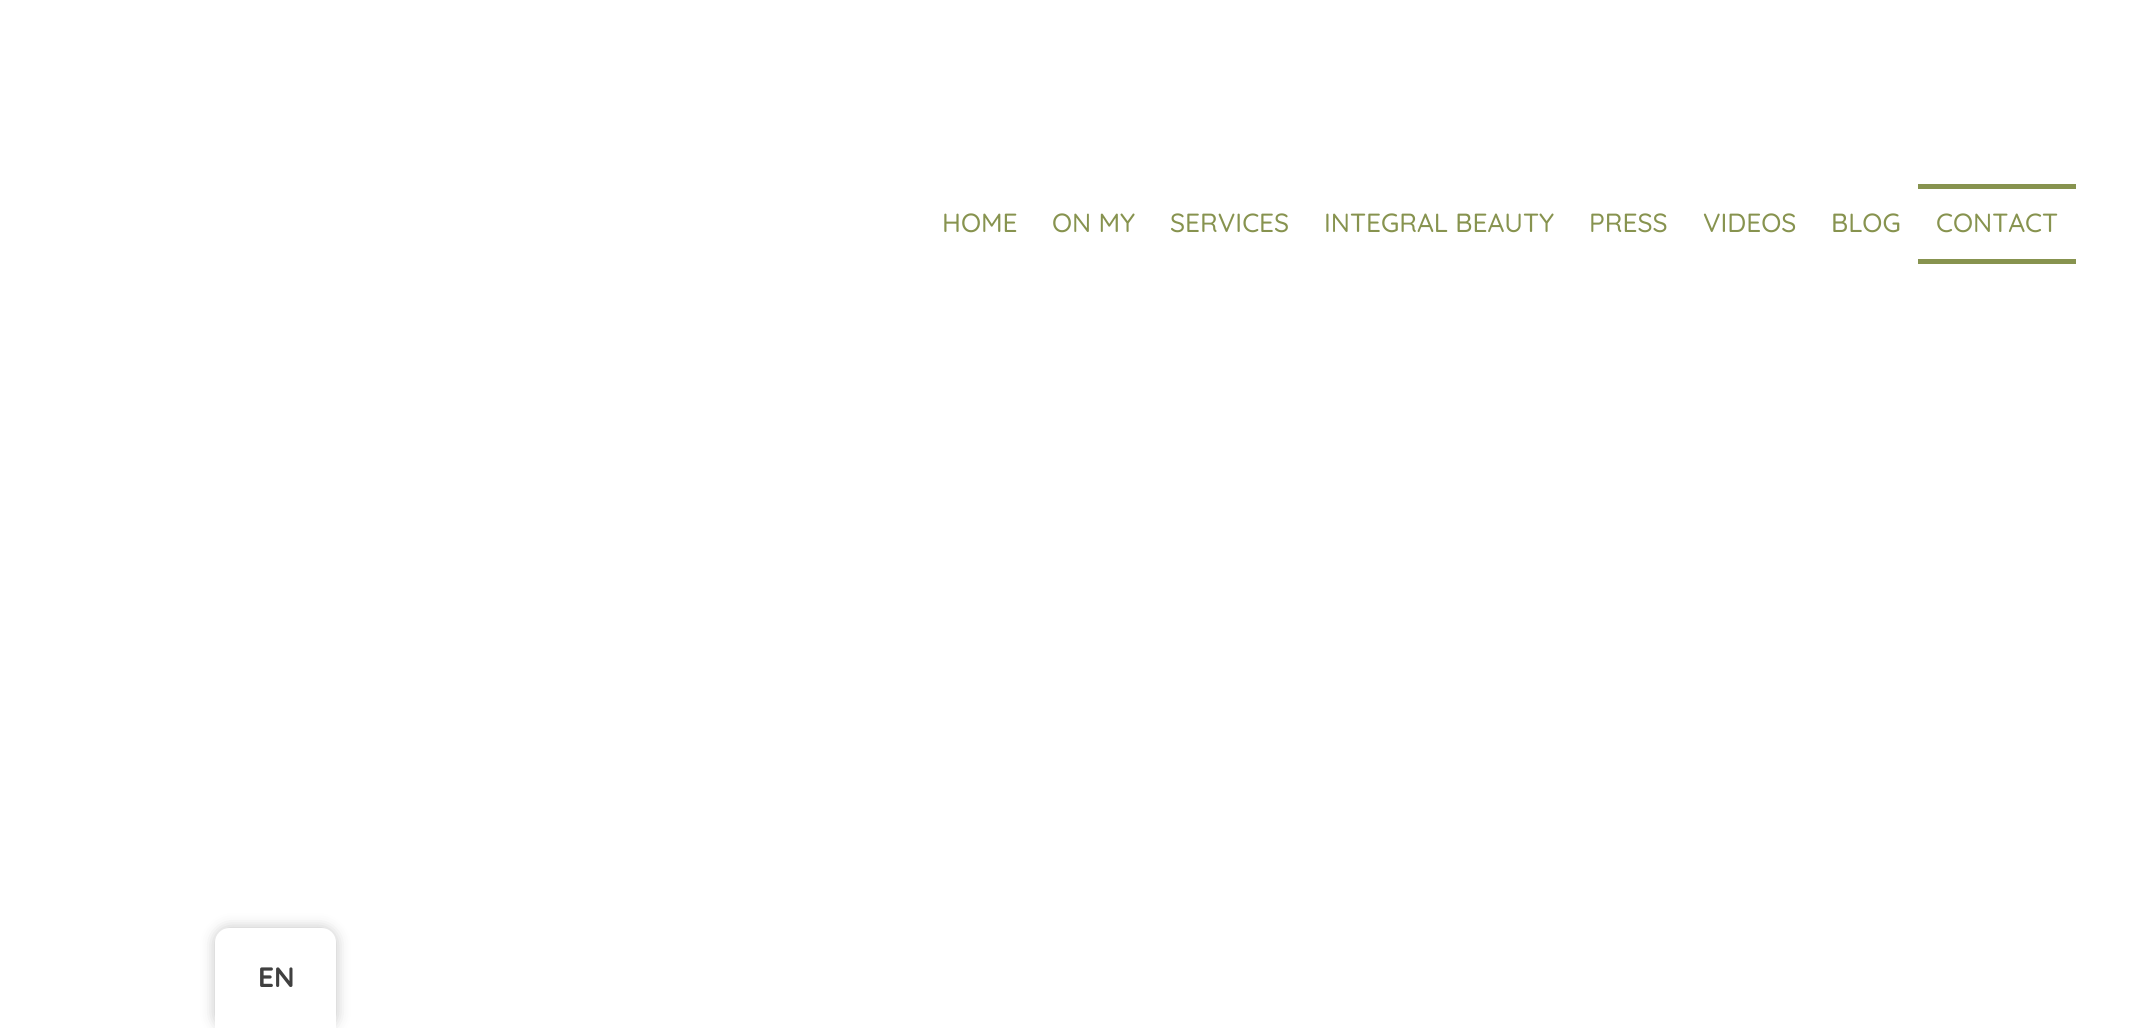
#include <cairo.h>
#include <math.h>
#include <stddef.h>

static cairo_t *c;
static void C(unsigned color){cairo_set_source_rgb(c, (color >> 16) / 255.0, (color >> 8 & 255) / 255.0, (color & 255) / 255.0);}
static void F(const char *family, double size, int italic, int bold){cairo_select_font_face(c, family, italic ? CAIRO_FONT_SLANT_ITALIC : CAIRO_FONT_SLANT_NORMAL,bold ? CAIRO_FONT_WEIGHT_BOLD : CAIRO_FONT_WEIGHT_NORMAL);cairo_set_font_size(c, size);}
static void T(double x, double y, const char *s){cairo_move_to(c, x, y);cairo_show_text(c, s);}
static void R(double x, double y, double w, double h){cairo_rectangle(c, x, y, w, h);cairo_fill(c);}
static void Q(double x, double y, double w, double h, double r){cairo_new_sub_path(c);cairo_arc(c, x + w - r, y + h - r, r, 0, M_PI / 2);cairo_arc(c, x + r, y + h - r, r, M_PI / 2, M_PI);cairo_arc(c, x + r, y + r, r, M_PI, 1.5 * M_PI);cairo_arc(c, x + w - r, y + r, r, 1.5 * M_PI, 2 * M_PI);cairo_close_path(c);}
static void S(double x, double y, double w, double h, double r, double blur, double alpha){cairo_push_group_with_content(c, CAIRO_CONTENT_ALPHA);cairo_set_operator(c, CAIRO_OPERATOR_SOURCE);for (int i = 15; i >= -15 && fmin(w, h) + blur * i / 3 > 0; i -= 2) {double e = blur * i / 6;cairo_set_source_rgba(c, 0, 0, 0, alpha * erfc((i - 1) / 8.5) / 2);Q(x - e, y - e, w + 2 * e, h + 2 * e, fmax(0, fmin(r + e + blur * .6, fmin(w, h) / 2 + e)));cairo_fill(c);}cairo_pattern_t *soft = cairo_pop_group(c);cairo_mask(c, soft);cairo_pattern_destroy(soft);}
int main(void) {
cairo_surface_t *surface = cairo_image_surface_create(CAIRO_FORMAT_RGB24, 2156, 1028);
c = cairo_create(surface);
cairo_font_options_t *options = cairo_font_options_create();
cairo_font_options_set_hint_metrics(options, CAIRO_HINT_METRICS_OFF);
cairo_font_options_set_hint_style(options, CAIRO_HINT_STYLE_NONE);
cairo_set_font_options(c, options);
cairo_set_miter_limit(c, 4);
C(0xffffff);
cairo_paint(c);
F("Quicksand Medium",26.25,0,0);
C(0x87934f);
T(942,232,"HOME");
T(1052,232,"ON MY");
T(1170,232,"SERVICES");
T(1324,232,"INTEGRAL BEAUTY");
T(1589,232,"PRESS");
T(1703,232,"VIDEOS");
T(1831,232,"BLOG");
R(1918,184,158,5);
T(1936,232,"CONTACT");
R(1918,259,158,5);
C(0x000000);
S(215,928,121,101,14,7,.25);
C(0xffffff);
cairo_new_path(c);
cairo_move_to(c,229,928);
cairo_line_to(c,322,928);
cairo_curve_to(c,329.5,928,336,934.5,336,942);
cairo_line_to(c,336,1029);
cairo_line_to(c,215,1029);
cairo_line_to(c,215,942);
cairo_curve_to(c,215,934.5,221.5,928,229,928);
cairo_close_path(c);
cairo_fill(c);
F("Quicksand",28,0,1);
C(0x404040);
T(258,987,"EN");
cairo_surface_write_to_png(surface, "o.png");
cairo_font_options_destroy(options);
cairo_destroy(c);
cairo_surface_destroy(surface);
return 0;
}
